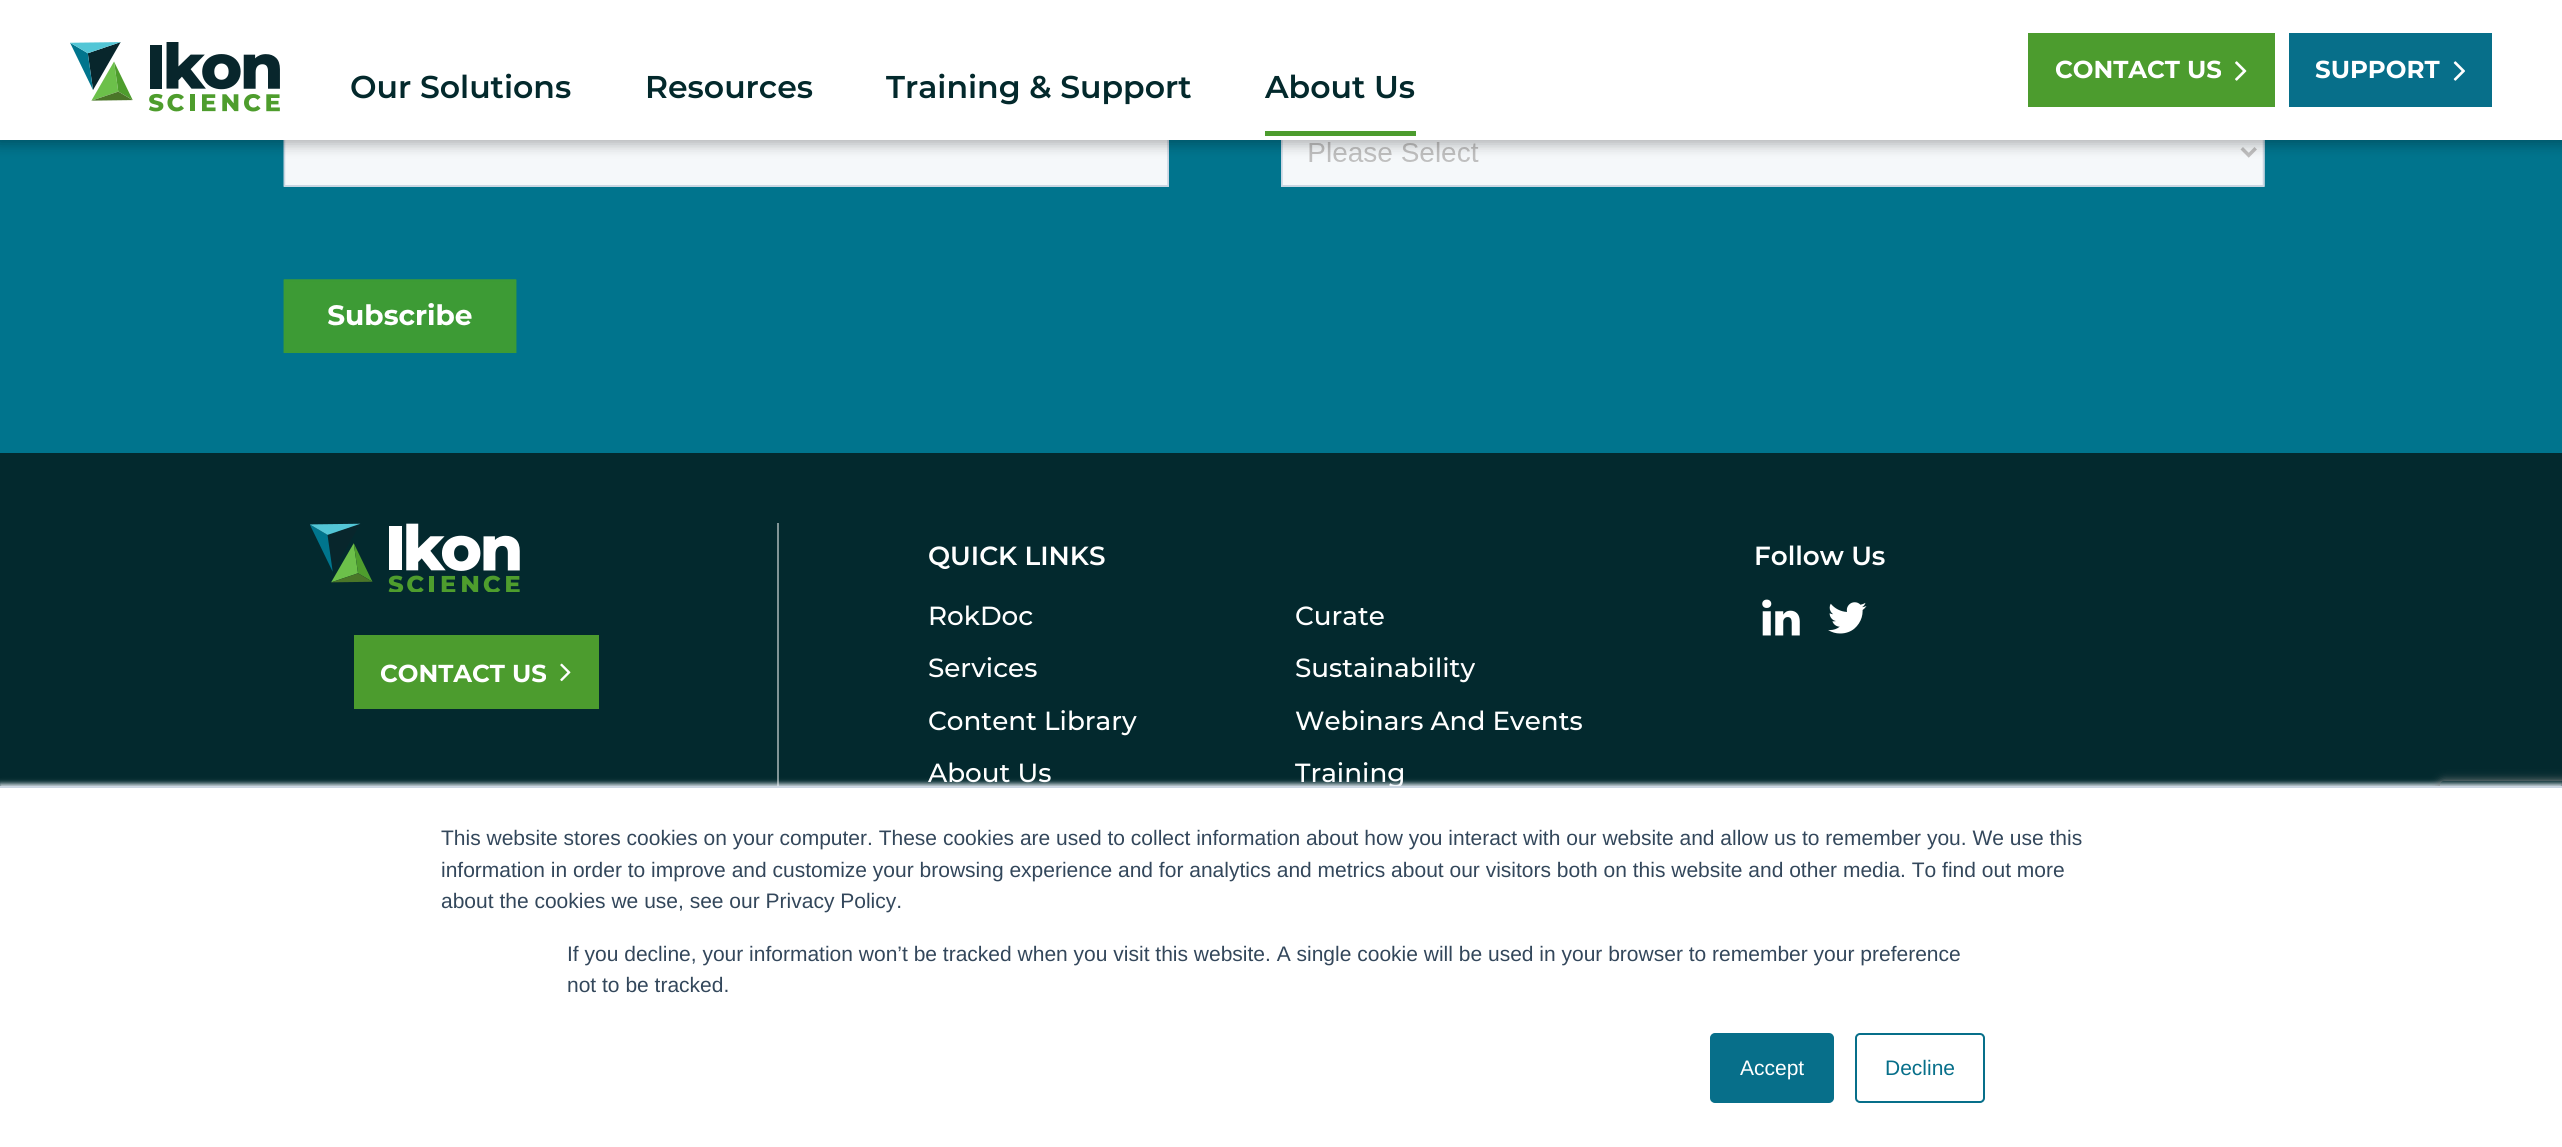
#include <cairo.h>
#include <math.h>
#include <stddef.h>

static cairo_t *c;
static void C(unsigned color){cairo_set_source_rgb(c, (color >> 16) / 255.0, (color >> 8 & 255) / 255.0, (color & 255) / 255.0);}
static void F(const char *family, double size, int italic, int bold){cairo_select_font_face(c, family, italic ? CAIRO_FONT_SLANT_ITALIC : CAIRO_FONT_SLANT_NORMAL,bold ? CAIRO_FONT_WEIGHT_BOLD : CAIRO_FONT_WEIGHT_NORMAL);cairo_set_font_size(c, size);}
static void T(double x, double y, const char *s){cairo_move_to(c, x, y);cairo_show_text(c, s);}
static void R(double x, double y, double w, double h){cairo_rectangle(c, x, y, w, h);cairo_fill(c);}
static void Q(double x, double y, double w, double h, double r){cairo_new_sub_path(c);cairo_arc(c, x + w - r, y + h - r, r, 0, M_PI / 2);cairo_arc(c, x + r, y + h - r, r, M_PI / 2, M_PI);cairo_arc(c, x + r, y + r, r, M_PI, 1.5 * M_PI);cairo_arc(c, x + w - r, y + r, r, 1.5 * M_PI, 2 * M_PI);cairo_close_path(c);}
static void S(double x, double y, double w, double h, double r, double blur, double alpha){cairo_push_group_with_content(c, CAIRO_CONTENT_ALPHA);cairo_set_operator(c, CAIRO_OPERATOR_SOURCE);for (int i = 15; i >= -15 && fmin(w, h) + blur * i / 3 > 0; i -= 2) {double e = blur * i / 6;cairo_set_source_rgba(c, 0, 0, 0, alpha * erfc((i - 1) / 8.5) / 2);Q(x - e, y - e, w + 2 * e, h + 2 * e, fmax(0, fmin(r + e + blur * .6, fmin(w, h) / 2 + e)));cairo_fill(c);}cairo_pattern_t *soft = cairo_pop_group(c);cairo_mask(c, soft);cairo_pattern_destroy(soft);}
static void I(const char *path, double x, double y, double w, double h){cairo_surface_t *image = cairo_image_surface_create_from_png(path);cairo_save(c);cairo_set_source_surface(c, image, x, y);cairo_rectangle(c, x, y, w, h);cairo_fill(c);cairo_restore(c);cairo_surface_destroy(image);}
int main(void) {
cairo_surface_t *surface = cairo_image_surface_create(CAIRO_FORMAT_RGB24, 2562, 1147);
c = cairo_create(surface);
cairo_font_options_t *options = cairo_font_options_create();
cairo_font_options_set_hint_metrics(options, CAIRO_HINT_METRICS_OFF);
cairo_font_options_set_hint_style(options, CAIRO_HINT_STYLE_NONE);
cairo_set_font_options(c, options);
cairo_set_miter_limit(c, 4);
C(0x00748d);
cairo_paint(c);
I("4.png",283,140,1982,213);
C(0x000000);
S(-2,-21,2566,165,0,7,.3);
C(0xffffff);
R(0,0,2562,140);
C(0x4c9c2e);
R(2028,33,247,74);
F("Montserrat",24.5,0,1);
C(0xffffff);
T(2055,78,"CONTACT US");
I("1.png",2235,61,12,20);
C(0x076f8a);
R(2289,33,203,74);
C(0xffffff);
T(2315,78,"SUPPORT");
I("2.png",2453,61,12,20);
I("3.png",70,42,210,70);
F("Montserrat SemiBold",31.5,0,0);
C(0x03292c);
T(350,98,"Our Solutions");
T(645,98,"Resources");
T(886,98,"Training & Support");
T(1265,98,"About Us");
C(0x4c9c2e);
R(1265,131,151,5);
C(0x03292e);
R(0,453,2562,333);
C(0x819496);
R(777,523,2,263);
I("5.png",310,523,210,69);
C(0x4c9c2e);
R(354,635,245,74);
F("Montserrat",24.5,0,1);
C(0xffffff);
T(380,682,"CONTACT US");
I("6.png",560,663,11,19);
F("Montserrat SemiBold",26.25,0,0);
T(928,565,"QUICK LINKS");
F("Montserrat Medium",26.25,0,0);
T(928,625,"RokDoc");
T(1295,625,"Curate");
T(928,677,"Services");
T(1295,677,"Sustainability");
T(928,730,"Content Library");
T(1295,730,"Webinars And Events");
T(928,782,"About Us");
T(1295,782,"Training");
F("Montserrat SemiBold",26.25,0,0);
T(1754,565,"Follow Us");
I("7.png",1762,599,38,37);
I("8.png",1828,602,39,32);
C(0xeaf0f6);
S(0,784,2562,362,0,2.5,1);
cairo_save(c);
cairo_set_fill_rule(c,CAIRO_FILL_RULE_EVEN_ODD);
cairo_new_path(c);
cairo_move_to(c,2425,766);
cairo_line_to(c,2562,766);
cairo_line_to(c,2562,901);
cairo_line_to(c,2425,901);
cairo_close_path(c);
cairo_move_to(c,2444,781);
cairo_line_to(c,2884,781);
cairo_curve_to(c,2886,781,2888,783,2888,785);
cairo_line_to(c,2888,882);
cairo_curve_to(c,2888,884,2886,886,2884,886);
cairo_line_to(c,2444,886);
cairo_curve_to(c,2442,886,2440,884,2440,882);
cairo_line_to(c,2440,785);
cairo_curve_to(c,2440,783,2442,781,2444,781);
cairo_close_path(c);
cairo_clip(c);
C(0x808080);
S(2440,781,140,105,4,4.5,1);
cairo_restore(c);
C(0xffffff);
R(0,788,2562,359);
C(0xcbd6e2);
R(0,786,2562,2);
F("Liberation Sans",21,0,0);
C(0x33475b);
T(441,845,"This website stores cookies on your computer. These cookies are used to collect information about how you interact with our website and allow us to remember you. We use this");
T(441,877,"information in order to improve and customize your browsing experience and for analytics and metrics about our visitors both on this website and other media. To find out more");
T(441,908,"about the cookies we use, see our Privacy Policy.");
T(567,961,"If you decline, your information won’t be tracked when you visit this website. A single cookie will be used in your browser to remember your preference");
T(567,992,"not to be tracked.");
C(0x076f8a);
Q(1711,1034,122,68,4);
cairo_fill_preserve(c);
cairo_stroke(c);
C(0xffffff);
T(1740,1075,"Accept");
Q(1856,1034,128,68,4);
C(0x076f8a);
cairo_stroke(c);
T(1885,1075,"Decline");
cairo_surface_write_to_png(surface, "o.png");
cairo_font_options_destroy(options);
cairo_destroy(c);
cairo_surface_destroy(surface);
return 0;
}
